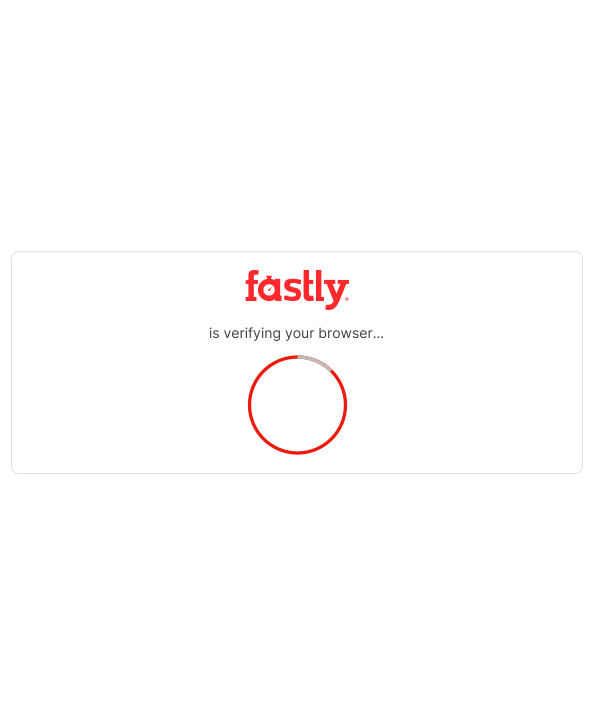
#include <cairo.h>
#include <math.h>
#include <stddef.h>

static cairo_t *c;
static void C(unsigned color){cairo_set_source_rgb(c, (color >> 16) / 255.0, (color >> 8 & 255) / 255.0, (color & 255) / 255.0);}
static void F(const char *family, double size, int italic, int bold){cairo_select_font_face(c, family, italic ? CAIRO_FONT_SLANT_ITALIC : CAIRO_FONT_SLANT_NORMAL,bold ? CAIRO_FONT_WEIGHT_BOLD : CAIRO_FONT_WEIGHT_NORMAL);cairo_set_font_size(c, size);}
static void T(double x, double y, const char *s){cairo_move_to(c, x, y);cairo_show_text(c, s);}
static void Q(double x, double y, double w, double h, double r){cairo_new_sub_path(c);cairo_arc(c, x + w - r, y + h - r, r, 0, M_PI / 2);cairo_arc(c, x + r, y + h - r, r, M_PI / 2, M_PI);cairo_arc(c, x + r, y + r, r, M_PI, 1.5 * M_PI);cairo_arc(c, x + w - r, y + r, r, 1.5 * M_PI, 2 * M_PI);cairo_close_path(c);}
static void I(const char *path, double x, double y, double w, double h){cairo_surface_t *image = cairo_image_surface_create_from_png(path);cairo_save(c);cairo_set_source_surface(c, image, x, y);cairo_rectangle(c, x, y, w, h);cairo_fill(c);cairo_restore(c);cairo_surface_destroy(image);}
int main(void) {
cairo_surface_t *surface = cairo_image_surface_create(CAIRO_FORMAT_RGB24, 594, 724);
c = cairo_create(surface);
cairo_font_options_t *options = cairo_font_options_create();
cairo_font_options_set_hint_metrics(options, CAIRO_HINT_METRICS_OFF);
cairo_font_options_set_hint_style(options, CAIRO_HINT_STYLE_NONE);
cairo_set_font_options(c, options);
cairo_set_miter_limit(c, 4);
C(0xffffff);
cairo_paint(c);
Q(11.5,251.5,571,222,7.5);
C(0xdce0e4);
cairo_set_line_width(c,1);
cairo_stroke(c);
I("1.png",245,270,104,40);
F("Inter",14,0,0);
C(0x3a424a);
T(209,338,"is verifying your browser...");
cairo_new_path(c);
cairo_move_to(c,249.5,405);
cairo_curve_to(c,249.5,378.5,271,357,297.5,357);
cairo_curve_to(c,324,357,345.5,378.5,345.5,405);
cairo_curve_to(c,345.5,431.5,324,453,297.5,453);
cairo_curve_to(c,271,453,249.5,431.5,249.5,405);
cairo_close_path(c);
C(0xeb1a0c);
cairo_set_line_width(c,3.3);
cairo_stroke(c);
cairo_new_path(c);
cairo_move_to(c,331,371);
cairo_curve_to(c,322,362,310,357,297.5,357);
C(0xc2bab5);
cairo_stroke(c);
cairo_surface_write_to_png(surface, "o.png");
cairo_font_options_destroy(options);
cairo_destroy(c);
cairo_surface_destroy(surface);
return 0;
}
